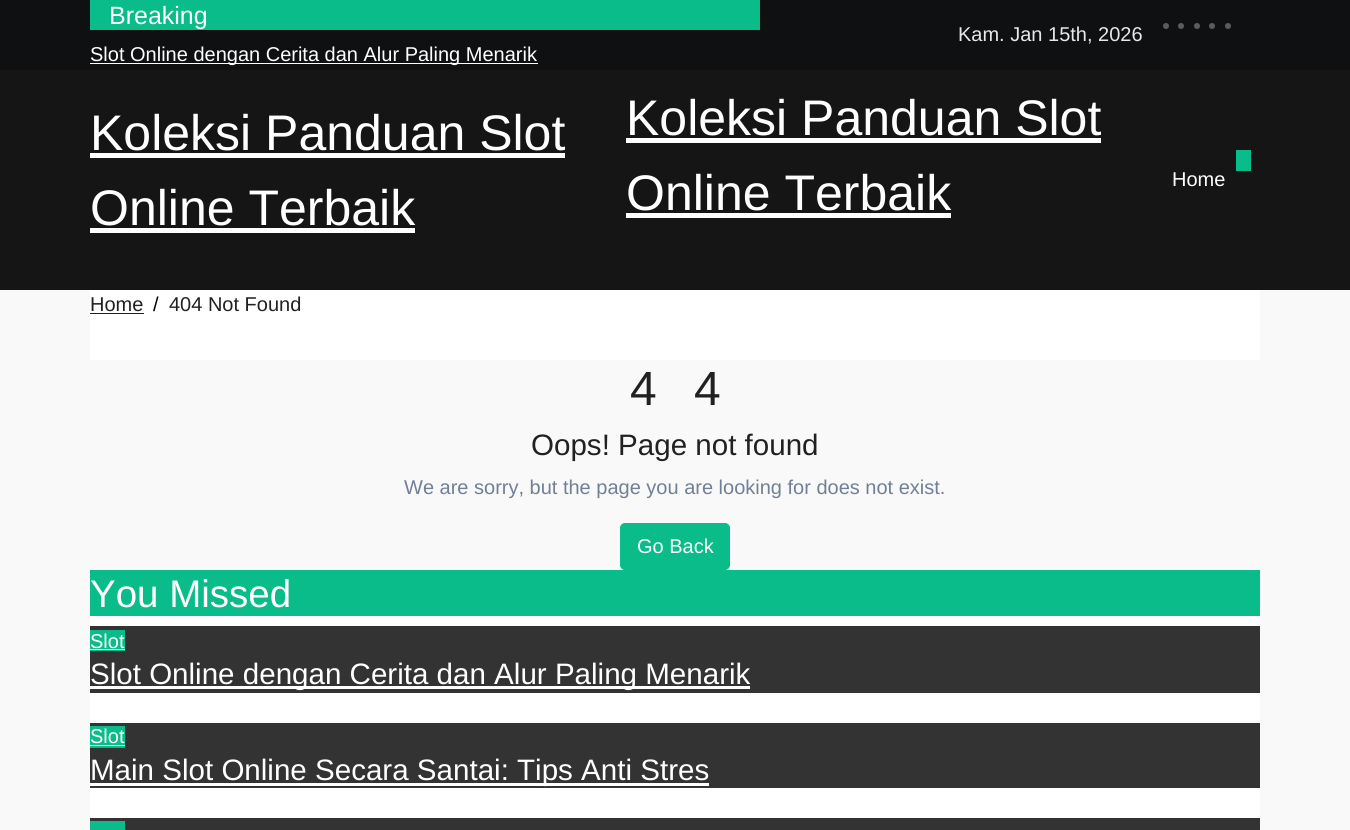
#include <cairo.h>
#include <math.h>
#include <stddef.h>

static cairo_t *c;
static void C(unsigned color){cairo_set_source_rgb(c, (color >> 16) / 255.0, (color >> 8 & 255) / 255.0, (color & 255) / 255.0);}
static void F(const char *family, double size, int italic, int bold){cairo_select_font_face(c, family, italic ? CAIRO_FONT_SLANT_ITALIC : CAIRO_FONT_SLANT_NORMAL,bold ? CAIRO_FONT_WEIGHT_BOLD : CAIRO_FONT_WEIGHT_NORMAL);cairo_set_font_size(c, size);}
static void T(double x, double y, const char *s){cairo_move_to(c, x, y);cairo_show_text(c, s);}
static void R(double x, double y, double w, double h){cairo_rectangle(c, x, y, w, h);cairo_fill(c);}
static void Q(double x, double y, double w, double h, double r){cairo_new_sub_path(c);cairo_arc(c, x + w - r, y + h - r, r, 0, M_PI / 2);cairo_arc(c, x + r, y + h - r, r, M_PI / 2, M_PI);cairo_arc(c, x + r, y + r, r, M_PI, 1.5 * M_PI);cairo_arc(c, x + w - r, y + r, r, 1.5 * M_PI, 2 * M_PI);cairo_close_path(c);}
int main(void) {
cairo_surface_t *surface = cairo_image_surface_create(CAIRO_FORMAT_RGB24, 1350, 830);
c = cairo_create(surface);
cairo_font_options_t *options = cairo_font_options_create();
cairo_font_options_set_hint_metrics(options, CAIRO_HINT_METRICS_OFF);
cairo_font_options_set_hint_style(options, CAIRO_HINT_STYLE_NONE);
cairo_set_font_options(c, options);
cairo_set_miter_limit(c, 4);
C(0xf9f9f9);
cairo_paint(c);
C(0x0f1012);
R(0,0,1350,70);
C(0x09bc8a);
R(90,0,670,30);
F("Liberation Sans",25,0,0);
C(0xffffff);
T(109,24,"Breaking");
R(90,63,448,1);
F("Liberation Sans",20,0,0);
T(90,61,"Slot Online dengan Cerita dan Alur Paling Menarik");
C(0xe8e8e8);
T(958,41,"Kam. Jan 15th, 2026");
C(0x5b5b5b);
cairo_new_path(c);
cairo_arc(c,1166,26,3,0,2 * M_PI);
cairo_fill(c);
cairo_arc(c,1181,26,3,0,2 * M_PI);
cairo_fill(c);
cairo_arc(c,1197,26,3,0,2 * M_PI);
cairo_fill(c);
cairo_arc(c,1212,26,3,0,2 * M_PI);
cairo_fill(c);
cairo_arc(c,1228,26,3,0,2 * M_PI);
cairo_fill(c);
C(0x151515);
R(0,70,1350,220);
F("Liberation Sans",50,0,0);
C(0xffffff);
T(90,150,"Koleksi Panduan Slot");
R(90,153,475,5);
T(90,225,"Online Terbaik");
R(90,228,325,5);
T(626,135,"Koleksi Panduan Slot");
R(626,138,475,5);
T(626,210,"Online Terbaik");
R(626,213,325,5);
C(0x09bc8a);
R(1236,150,15,21);
F("Liberation Sans",20,0,0);
C(0xffffff);
T(1172,186,"Home");
R(90,290,1170,70);
C(0x212121);
T(90,311,"Home");
R(90,313,54,1);
C(0x000000);
T(153,311,"/");
C(0x212121);
T(169,311,"404 Not Found");
F("Liberation Sans",48,0,0);
T(630,405,"4");
T(694,405,"4");
F("Liberation Sans",29.55,0,0);
T(531,455,"Oops! Page not found");
F("Liberation Sans",20,0,0);
C(0x718096);
T(404,494,"We are sorry, but the page you are looking for does not exist.");
C(0x09bc8a);
Q(620.5,523.5,109,46,4.5);
cairo_fill_preserve(c);
cairo_set_line_width(c,1);
cairo_stroke(c);
C(0xffffff);
T(637,553,"Go Back");
R(90,616,1170,202);
C(0x09bc8a);
R(90,570,1170,46);
F("Liberation Sans",38.5,0,0);
C(0xffffff);
T(90,607,"You Missed");
C(0x333333);
R(90,626,1170,67);
C(0x09bc8a);
R(90,630,35,21);
F("Liberation Sans",20,0,0);
C(0xffffff);
T(90,648,"Slot");
R(90,649,35,1);
R(90,686,660,3);
F("Liberation Sans",29.55,0,0);
T(90,684,"Slot Online dengan Cerita dan Alur Paling Menarik");
C(0x333333);
R(90,723,1170,65);
C(0x09bc8a);
R(90,726,35,22);
F("Liberation Sans",20,0,0);
C(0xffffff);
T(90,743,"Slot");
R(90,745,35,1);
R(90,783,619,3);
F("Liberation Sans",29.55,0,0);
T(90,780,"Main Slot Online Secara Santai: Tips Anti Stres");
C(0x333333);
R(90,818,1170,12);
C(0x09bc8a);
R(90,821,35,9);
cairo_surface_write_to_png(surface, "o.png");
cairo_font_options_destroy(options);
cairo_destroy(c);
cairo_surface_destroy(surface);
return 0;
}
